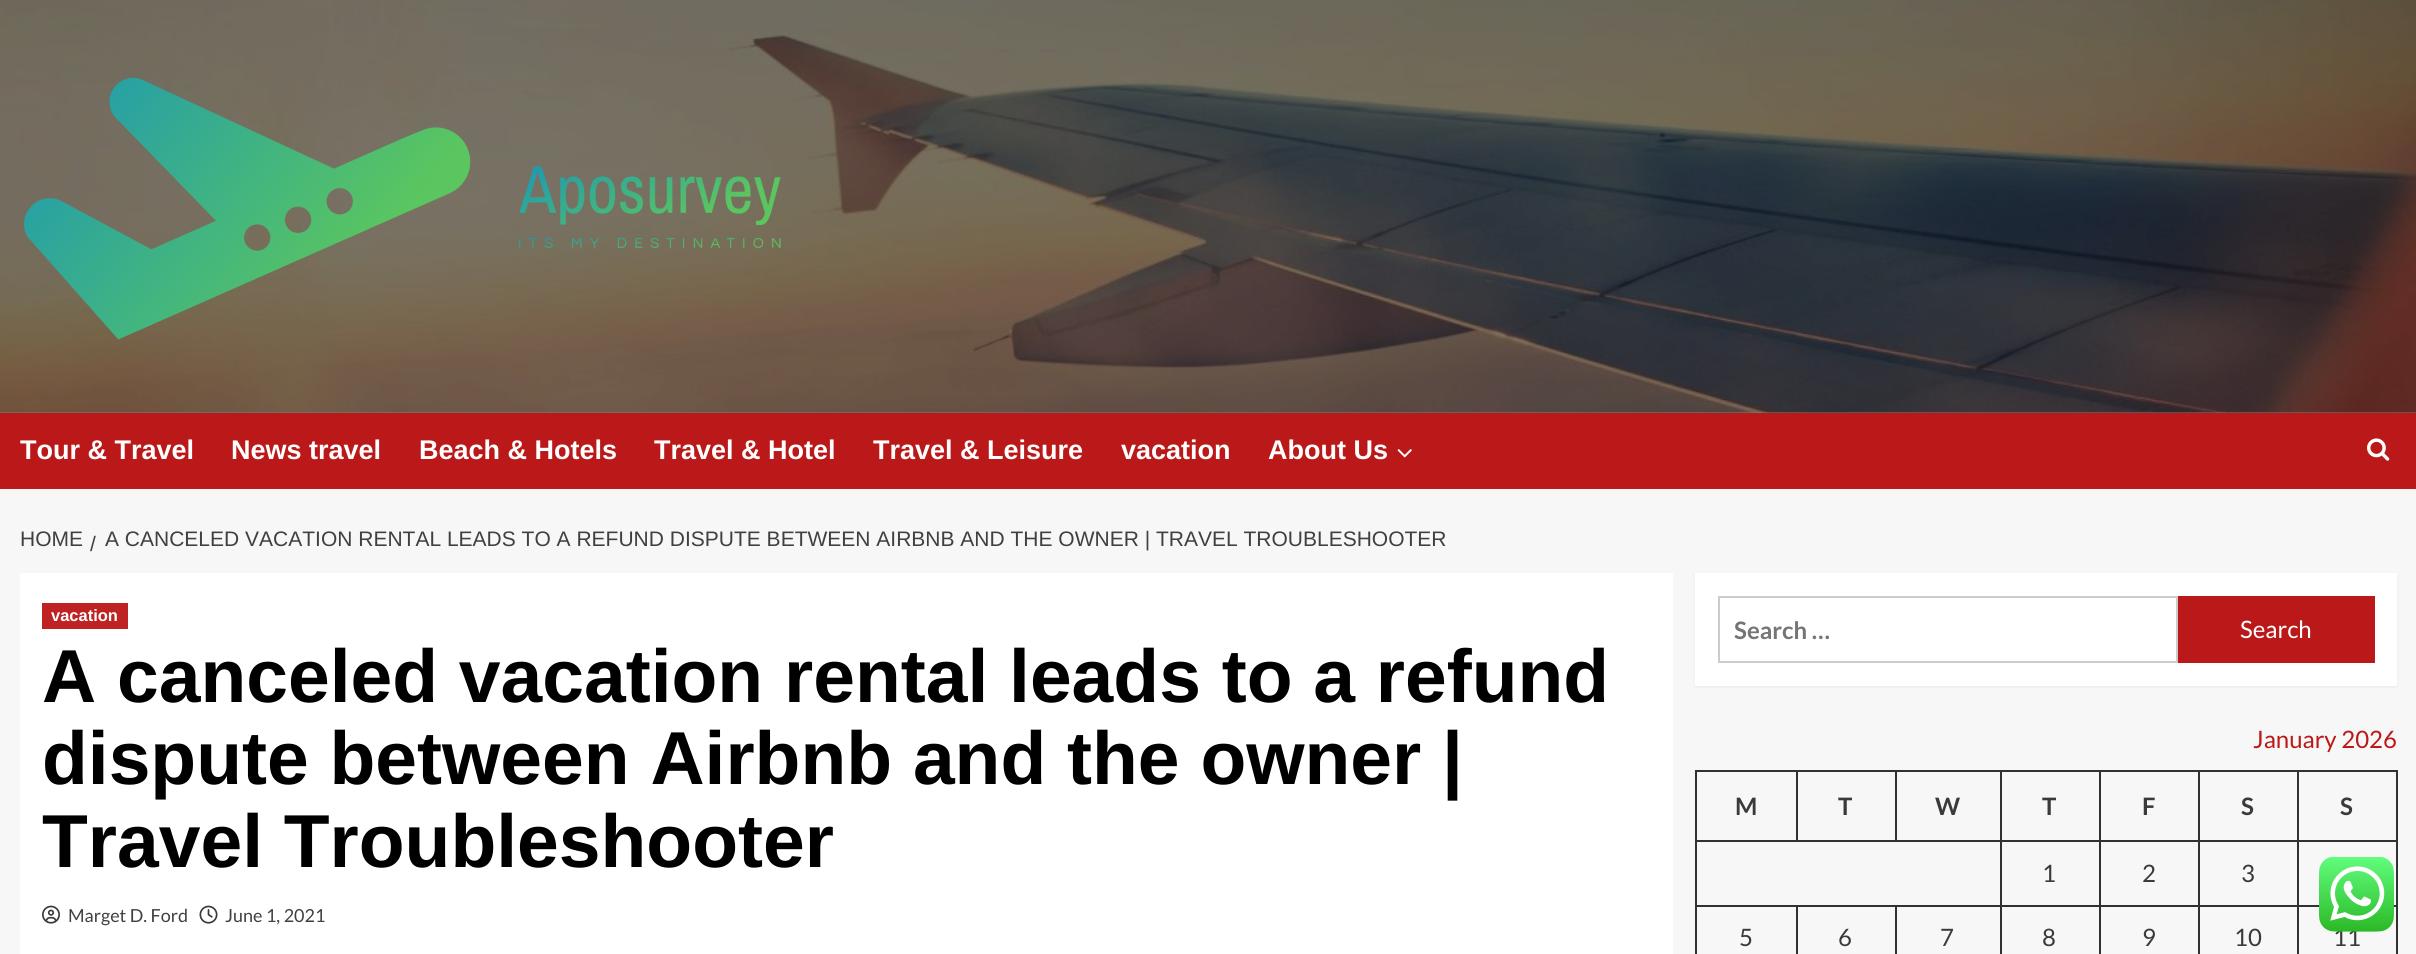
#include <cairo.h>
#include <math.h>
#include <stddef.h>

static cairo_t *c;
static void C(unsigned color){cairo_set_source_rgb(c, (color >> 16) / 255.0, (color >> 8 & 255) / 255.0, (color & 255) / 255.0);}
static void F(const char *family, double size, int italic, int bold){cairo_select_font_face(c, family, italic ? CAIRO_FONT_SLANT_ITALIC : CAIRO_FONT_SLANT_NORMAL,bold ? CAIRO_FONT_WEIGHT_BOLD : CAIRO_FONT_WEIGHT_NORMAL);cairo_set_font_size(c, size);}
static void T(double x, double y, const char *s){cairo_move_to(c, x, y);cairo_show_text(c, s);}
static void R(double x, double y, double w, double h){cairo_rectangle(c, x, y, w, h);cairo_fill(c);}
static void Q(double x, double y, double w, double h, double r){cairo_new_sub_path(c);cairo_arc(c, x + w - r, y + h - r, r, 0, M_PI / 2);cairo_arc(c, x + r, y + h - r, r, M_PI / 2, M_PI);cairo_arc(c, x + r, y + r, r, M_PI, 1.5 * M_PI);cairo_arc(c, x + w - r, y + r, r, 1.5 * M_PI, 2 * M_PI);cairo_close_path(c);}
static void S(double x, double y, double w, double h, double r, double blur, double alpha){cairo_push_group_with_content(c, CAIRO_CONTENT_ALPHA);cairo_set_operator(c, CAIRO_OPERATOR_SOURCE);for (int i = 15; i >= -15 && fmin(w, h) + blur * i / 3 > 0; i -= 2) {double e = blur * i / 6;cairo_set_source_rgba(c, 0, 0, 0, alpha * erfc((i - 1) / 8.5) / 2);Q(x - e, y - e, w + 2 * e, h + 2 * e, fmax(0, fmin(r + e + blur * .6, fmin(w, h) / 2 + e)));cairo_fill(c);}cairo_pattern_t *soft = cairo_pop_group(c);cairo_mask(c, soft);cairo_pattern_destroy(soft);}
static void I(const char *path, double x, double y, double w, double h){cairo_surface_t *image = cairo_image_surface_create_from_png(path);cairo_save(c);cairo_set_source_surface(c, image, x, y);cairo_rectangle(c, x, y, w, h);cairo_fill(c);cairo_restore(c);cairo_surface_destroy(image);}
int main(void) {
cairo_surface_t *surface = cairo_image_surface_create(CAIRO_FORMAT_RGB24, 2416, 954);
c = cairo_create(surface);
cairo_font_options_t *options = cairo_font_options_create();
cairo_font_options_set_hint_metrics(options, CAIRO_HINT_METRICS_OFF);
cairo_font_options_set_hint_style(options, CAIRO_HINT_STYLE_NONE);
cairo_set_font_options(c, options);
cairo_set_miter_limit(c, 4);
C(0xf7f7f7);
cairo_paint(c);
C(0x7c7c7c);
R(0,412,2416,1);
I("1.png",0,0,2416,413);
I("2.png",23,77,758,263);
C(0xbb1919);
R(0,413,2416,76);
F("Liberation Sans",27,0,1);
C(0xffffff);
T(20,459,"Tour & Travel");
T(231,459,"News travel");
T(419,459,"Beach & Hotels");
T(654,459,"Travel & Hotel");
T(873,459,"Travel & Leisure");
T(1121,459,"vacation");
T(1268,459,"About Us");
I("3.png",1397,449,15,9);
I("4.png",2367,438,23,23);
F("Liberation Sans",21,0,0);
C(0x404040);
T(20,546,"HOME");
T(90,551,"/");
T(105,546,"A CANCELED VACATION RENTAL LEADS TO A REFUND DISPUTE BETWEEN AIRBNB AND THE OWNER | TRAVEL TROUBLESHOOTER");
C(0xffffff);
R(20,573,1653,381);
C(0xbe2222);
R(42,603,86,26);
F("Liberation Sans",16.5,0,1);
C(0xffffff);
T(51,621,"vacation");
F("Liberation Sans",75,0,1);
C(0x000000);
T(42,702,"A canceled vacation rental leads to a refund");
T(42,784,"dispute between Airbnb and the owner |");
T(42,867,"Travel Troubleshooter");
I("5.png",42,905,18,19);
F("Lato",18,0,0);
C(0x404040);
T(68,922,"Marget D. Ford");
I("6.png",199,905,19,19);
T(225,922,"June 1, 2021");
C(0x000000);
S(1695,575,702,112,0,1.5,.05);
C(0xffffff);
R(1695,573,702,113);
cairo_rectangle(c,1719,597,458,65);
C(0xcccccc);
cairo_stroke(c);
F("Lato",24,0,1);
C(0x757575);
T(1734,639,"Search …");
C(0xbb1919);
R(2178,596,197,67);
F("Lato",24,0,0);
C(0xffffff);
T(2240,638,"Search");
C(0xbb1919);
T(2253,748,"January 2026");
C(0x313131);
R(2297,770,100,2);
R(2297,840,100,2);
R(2297,905,100,2);
R(2297,905,2,49);
R(2198,905,100,2);
R(2297,840,2,66);
R(2198,840,100,2);
R(2297,770,2,72);
R(2198,770,100,2);
R(2198,905,2,49);
R(2099,905,100,2);
R(2198,840,2,66);
R(2099,840,100,2);
R(2198,770,2,72);
R(2099,770,100,2);
R(2099,905,2,49);
R(2000,905,100,2);
R(2099,840,2,66);
R(2000,840,100,2);
R(2099,770,2,72);
R(2000,770,100,2);
R(2000,905,2,49);
R(1895,905,106,2);
R(2000,840,2,66);
R(1695,840,306,2);
R(2000,770,2,72);
R(1895,770,106,2);
R(1895,770,2,72);
R(1796,770,100,2);
R(1796,770,2,72);
R(1695,770,102,2);
R(1895,905,2,49);
R(1796,905,100,2);
R(1796,905,2,49);
R(1695,905,102,2);
R(1695,905,2,49);
R(1695,840,2,66);
R(1695,770,2,72);
F("Lato",24,0,1);
C(0x3a3a3a);
T(1735,815,"M");
T(1838,815,"T");
T(1935,815,"W");
T(2042,815,"T");
T(2142,815,"F");
T(2241,815,"S");
C(0x313131);
R(2396,905,2,49);
R(2396,840,2,66);
R(2396,770,2,72);
C(0x3a3a3a);
T(2340,815,"S");
F("Lato",24,0,0);
T(2042,882,"1");
T(2142,882,"2");
T(2241,882,"3");
T(1739,946,"5");
T(1838,946,"6");
T(1940,946,"7");
T(2042,946,"8");
T(2142,946,"9");
T(2234,946,"10");
T(2333,946,"11");
I("7.png",2319,857,75,75);
cairo_surface_write_to_png(surface, "o.png");
cairo_font_options_destroy(options);
cairo_destroy(c);
cairo_surface_destroy(surface);
return 0;
}
